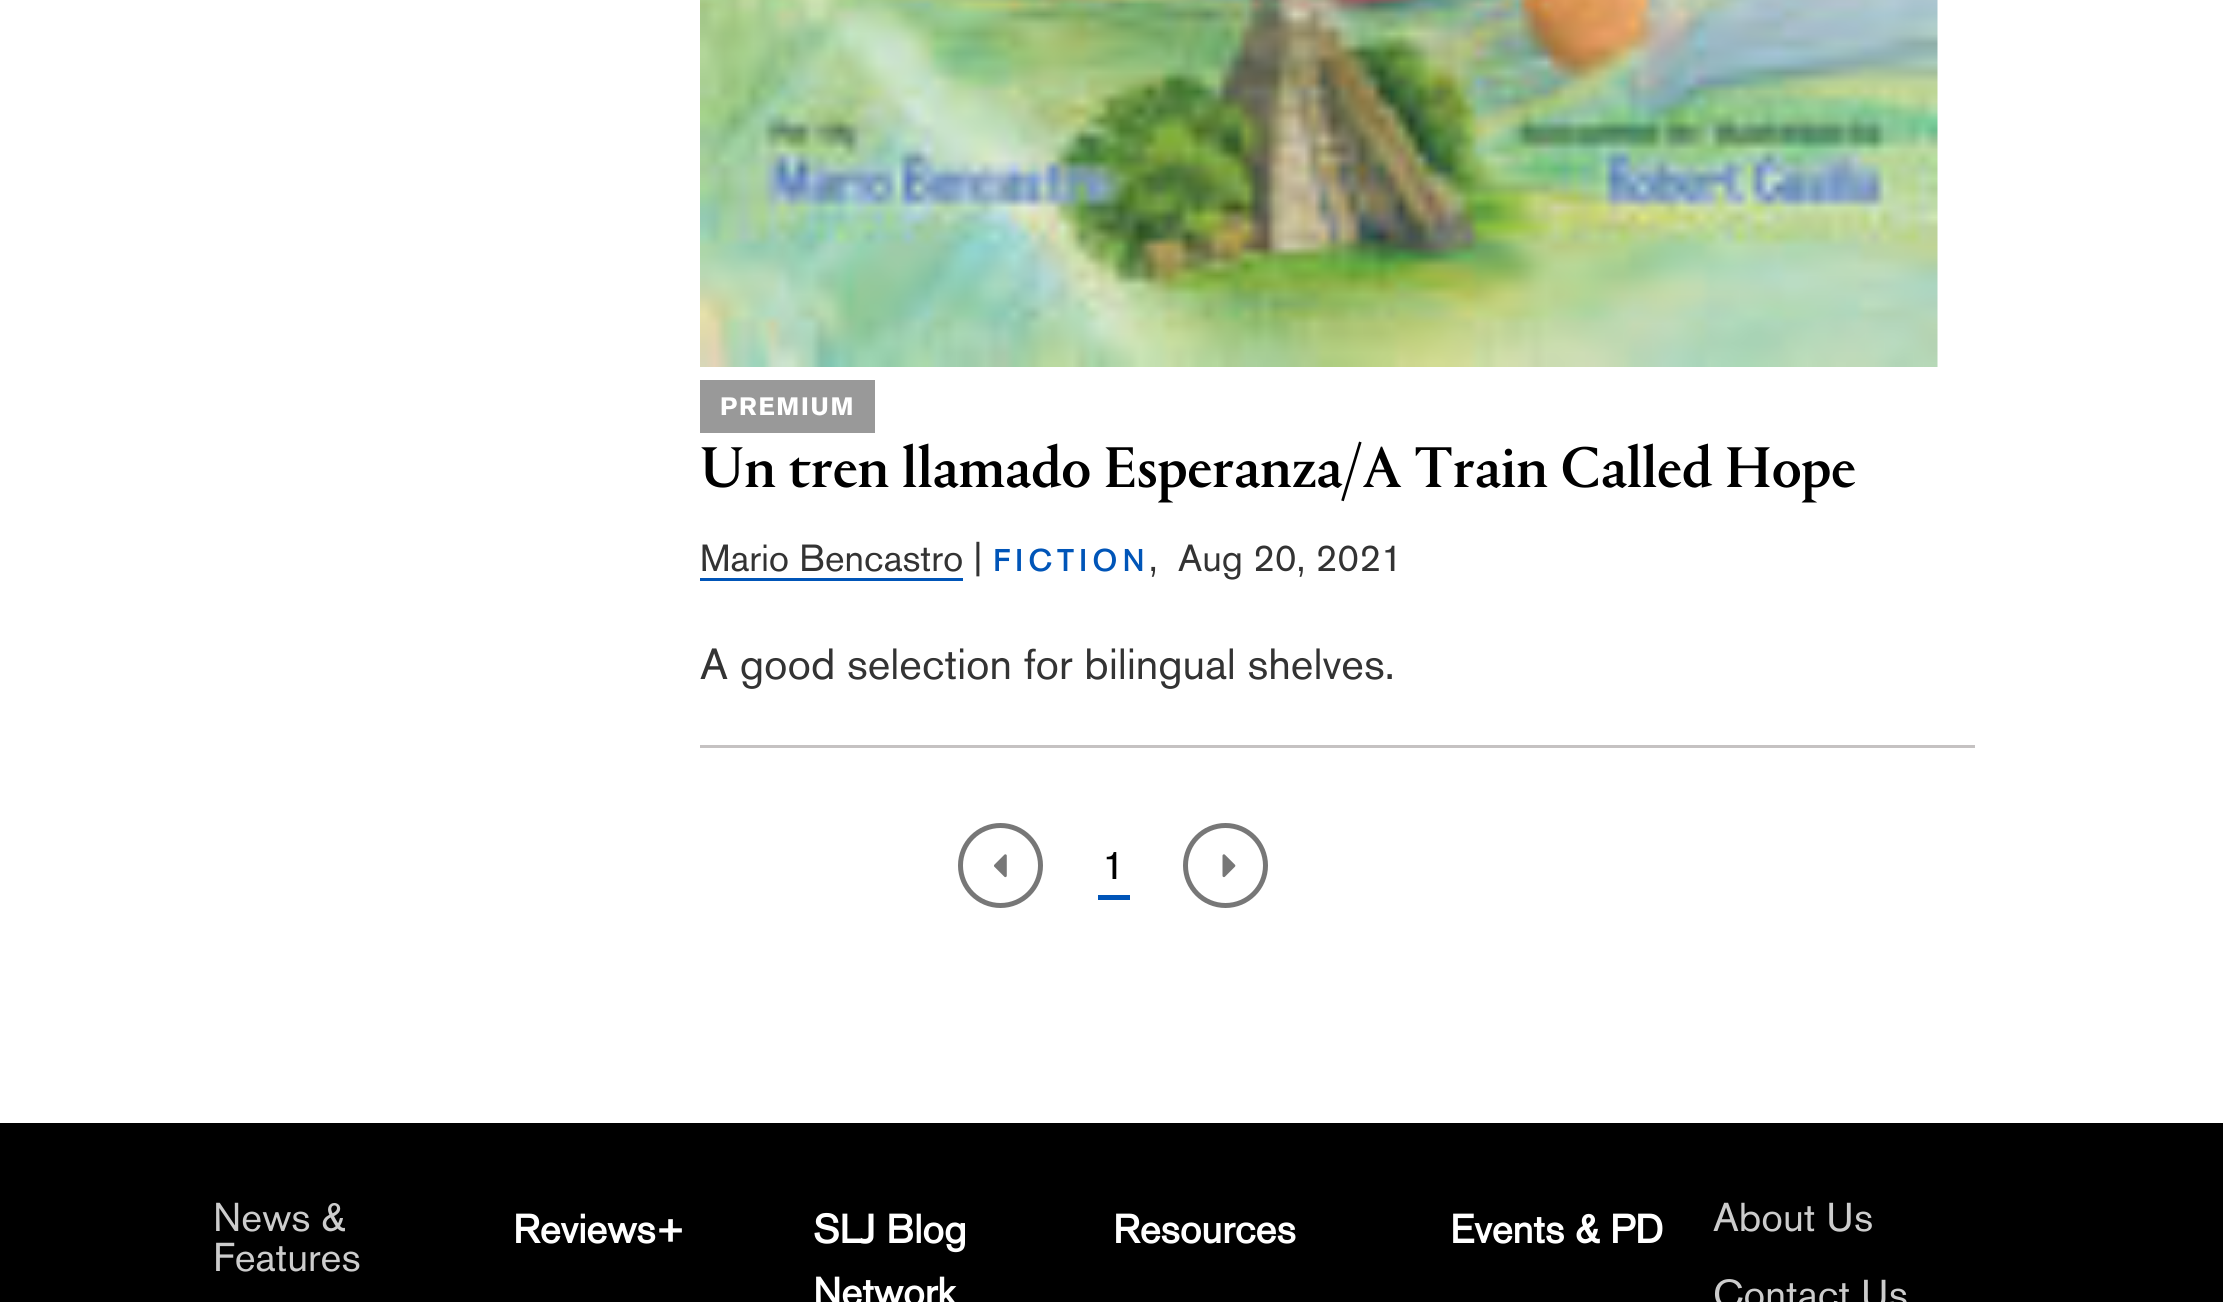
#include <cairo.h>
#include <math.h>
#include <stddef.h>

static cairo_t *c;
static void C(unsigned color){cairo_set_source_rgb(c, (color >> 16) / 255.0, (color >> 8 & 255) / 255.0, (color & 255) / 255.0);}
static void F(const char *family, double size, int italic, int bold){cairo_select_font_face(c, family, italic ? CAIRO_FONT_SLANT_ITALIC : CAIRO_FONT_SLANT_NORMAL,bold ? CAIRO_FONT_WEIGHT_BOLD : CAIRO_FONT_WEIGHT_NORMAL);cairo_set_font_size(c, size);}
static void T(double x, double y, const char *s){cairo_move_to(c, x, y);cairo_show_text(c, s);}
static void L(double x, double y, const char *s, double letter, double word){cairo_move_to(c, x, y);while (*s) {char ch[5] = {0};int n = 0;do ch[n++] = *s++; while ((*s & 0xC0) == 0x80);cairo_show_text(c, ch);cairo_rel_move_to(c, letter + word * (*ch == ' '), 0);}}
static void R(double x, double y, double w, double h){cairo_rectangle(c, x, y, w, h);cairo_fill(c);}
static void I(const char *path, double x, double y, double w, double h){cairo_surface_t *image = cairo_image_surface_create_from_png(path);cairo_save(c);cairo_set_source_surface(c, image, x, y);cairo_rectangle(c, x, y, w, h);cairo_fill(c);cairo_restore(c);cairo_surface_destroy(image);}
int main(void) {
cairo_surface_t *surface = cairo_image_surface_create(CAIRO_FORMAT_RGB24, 2223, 1302);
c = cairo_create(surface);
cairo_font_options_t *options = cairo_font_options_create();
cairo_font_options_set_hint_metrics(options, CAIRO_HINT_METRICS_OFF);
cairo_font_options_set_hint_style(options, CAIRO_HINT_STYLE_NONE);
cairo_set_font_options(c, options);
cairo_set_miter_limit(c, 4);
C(0xffffff);
cairo_paint(c);
I("1.png",700,0,1238,367);
C(0x999999);
R(700,380,175,53);
F("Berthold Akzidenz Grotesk",25,0,1);
C(0xffffff);
L(720,415,"PREMIUM",1.75,0);
F("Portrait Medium",60,0,0);
C(0x000000);
T(700,487,"Un tren llamado Esperanza/A Train Called Hope");
F("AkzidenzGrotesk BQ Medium",37.5,0,0);
C(0x333333);
T(700,571,"Mario Bencastro |");
C(0x0055b8);
R(700,578,263,3);
F("AkzidenzGrotesk BQ",30,0,1);
L(993,571,"FICTION",6,0);
F("AkzidenzGrotesk BQ Medium",37.5,0,0);
C(0x333333);
T(1149,571,",");
T(1178,571,"Aug 20, 2021");
F("AkzidenzGrotesk BQ Medium",43.3,0,0);
T(700,679,"A good selection for bilingual shelves.");
C(0xc5c2c2);
R(700,745,1275,3);
cairo_new_path(c);
cairo_arc(c,1000.5,865.5,40,0,2 * M_PI);
C(0x777777);
cairo_set_line_width(c,5);
cairo_stroke(c);
I("2.png",994,854,13,24);
C(0x0055b8);
R(1098,895,32,5);
F("AkzidenzGrotesk BQ Medium",40,0,0);
C(0x000000);
T(1102,879,"1");
cairo_new_path(c);
cairo_arc(c,1225.5,865.5,40,0,2 * M_PI);
C(0x777777);
cairo_stroke(c);
I("3.png",1222,854,14,24);
C(0x000000);
R(0,1123,2223,179);
C(0xcccccc);
T(213,1231,"News &");
T(213,1271,"Features");
F("AkzidenzGrotesk BQ",40,0,1);
C(0xffffff);
T(513,1243,"Reviews+");
T(813,1243,"SLJ Blog");
T(813,1306,"Network");
T(1113,1243,"Resources");
T(1450,1243,"Events & PD");
F("AkzidenzGrotesk BQ Medium",40,0,0);
C(0xcccccc);
T(1713,1231,"About Us");
T(1713,1308,"Contact Us");
cairo_surface_write_to_png(surface, "o.png");
cairo_font_options_destroy(options);
cairo_destroy(c);
cairo_surface_destroy(surface);
return 0;
}
